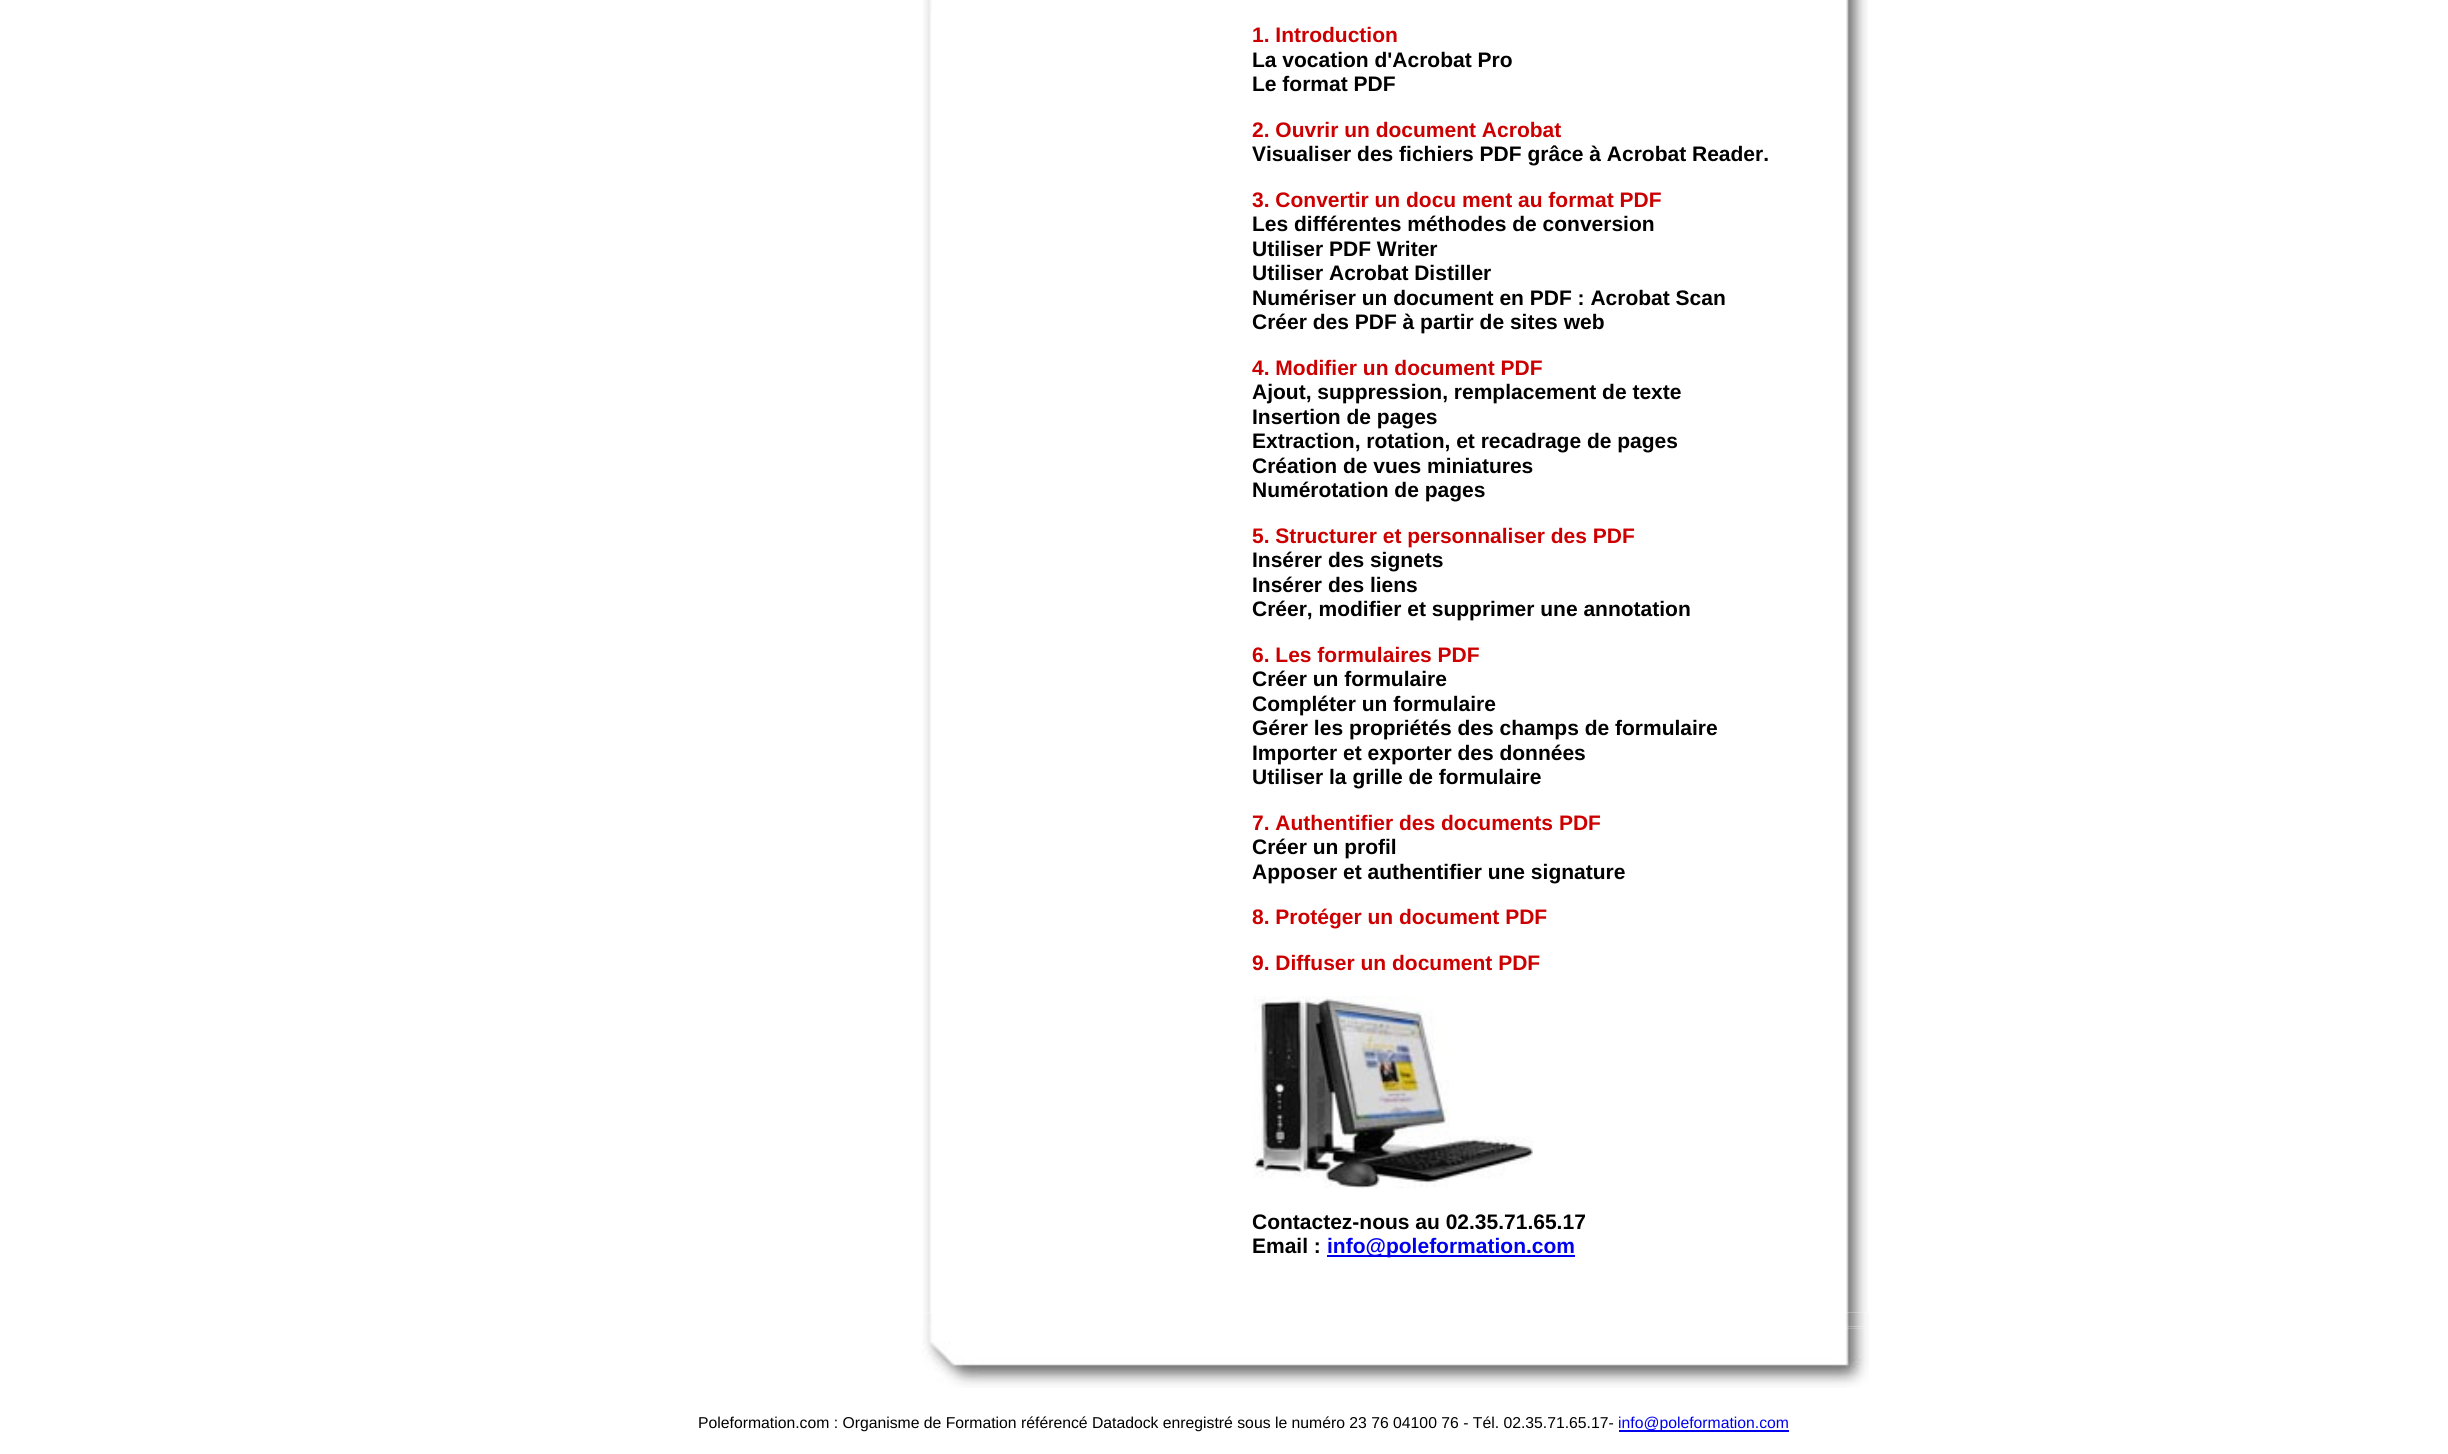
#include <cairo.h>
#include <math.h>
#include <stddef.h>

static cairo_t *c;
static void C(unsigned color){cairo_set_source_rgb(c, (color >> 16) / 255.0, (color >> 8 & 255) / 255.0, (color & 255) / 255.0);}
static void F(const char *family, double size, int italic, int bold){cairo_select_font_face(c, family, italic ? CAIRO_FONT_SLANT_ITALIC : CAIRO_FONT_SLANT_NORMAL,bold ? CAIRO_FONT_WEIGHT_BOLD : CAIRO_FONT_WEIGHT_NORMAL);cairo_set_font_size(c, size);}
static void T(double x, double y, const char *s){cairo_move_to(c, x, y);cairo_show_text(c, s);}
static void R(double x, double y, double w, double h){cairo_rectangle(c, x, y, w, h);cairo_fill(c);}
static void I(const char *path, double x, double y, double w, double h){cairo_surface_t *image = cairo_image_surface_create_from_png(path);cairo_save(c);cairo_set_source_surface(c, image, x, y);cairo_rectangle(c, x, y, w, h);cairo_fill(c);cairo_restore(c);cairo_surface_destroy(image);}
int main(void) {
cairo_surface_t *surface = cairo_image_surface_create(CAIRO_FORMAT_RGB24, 2448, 1454);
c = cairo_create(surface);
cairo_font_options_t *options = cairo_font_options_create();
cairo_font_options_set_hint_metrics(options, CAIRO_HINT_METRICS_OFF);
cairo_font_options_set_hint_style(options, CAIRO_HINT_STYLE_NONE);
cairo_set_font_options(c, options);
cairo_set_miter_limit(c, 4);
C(0xffffff);
cairo_paint(c);
I("1.png",923,0,8,1313);
C(0xfafafa);
R(931,0,1,12);
F("Liberation Sans",21,0,1);
C(0xcc0000);
T(1252,42,"1. Introduction");
C(0x000000);
T(1252,67,"La vocation d'Acrobat Pro");
T(1252,91,"Le format PDF");
C(0xcc0000);
T(1252,137,"2. Ouvrir un document Acrobat");
C(0x000000);
T(1252,161,"Visualiser des fichiers PDF grâce à Acrobat Reader.");
C(0xcc0000);
T(1252,207,"3. Convertir un docu ment au format PDF");
C(0x000000);
T(1252,231,"Les différentes méthodes de conversion");
T(1252,256,"Utiliser PDF Writer");
T(1252,280,"Utiliser Acrobat Distiller");
T(1252,305,"Numériser un document en PDF : Acrobat Scan");
T(1252,329,"Créer des PDF à partir de sites web");
C(0xcc0000);
T(1252,375,"4. Modifier un document PDF");
C(0x000000);
T(1252,399,"Ajout, suppression, remplacement de texte");
T(1252,424,"Insertion de pages");
T(1252,448,"Extraction, rotation, et recadrage de pages");
T(1252,473,"Création de vues miniatures");
T(1252,497,"Numérotation de pages");
C(0xcc0000);
T(1252,543,"5. Structurer et personnaliser des PDF");
C(0x000000);
T(1252,567,"Insérer des signets");
T(1252,592,"Insérer des liens");
T(1252,616,"Créer, modifier et supprimer une annotation");
C(0xcc0000);
T(1252,662,"6. Les formulaires PDF");
C(0x000000);
T(1252,686,"Créer un formulaire");
T(1252,711,"Compléter un formulaire");
T(1252,735,"Gérer les propriétés des champs de formulaire");
T(1252,760,"Importer et exporter des données");
T(1252,784,"Utiliser la grille de formulaire");
C(0xcc0000);
T(1252,830,"7. Authentifier des documents PDF");
C(0x000000);
T(1252,854,"Créer un profil");
T(1252,879,"Apposer et authentifier une signature");
C(0xcc0000);
T(1252,924,"8. Protéger un document PDF");
T(1252,970,"9. Diffuser un document PDF");
I("2.png",1253,996,280,193);
C(0x000000);
T(1252,1229,"Contactez-nous au 02.35.71.65.17");
T(1252,1253,"Email :");
C(0x0000ee);
R(1327,1255,248,2);
T(1327,1253,"info@poleformation.com");
I("3.png",1846,0,22,1313);
I("4.png",923,1312,946,15);
I("5.png",923,1326,946,3);
I("6.png",922,1328,947,60);
F("Liberation Sans",15.75,0,0);
C(0x000000);
T(698,1428,"Poleformation.com : Organisme de Formation référencé Datadock enregistré sous le numéro 23 76 04100 76 - Tél. 02.35.71.65.17-");
C(0x0000ee);
R(1619,1430,170,2);
T(1618,1428,"info@poleformation.com");
cairo_surface_write_to_png(surface, "o.png");
cairo_font_options_destroy(options);
cairo_destroy(c);
cairo_surface_destroy(surface);
return 0;
}
